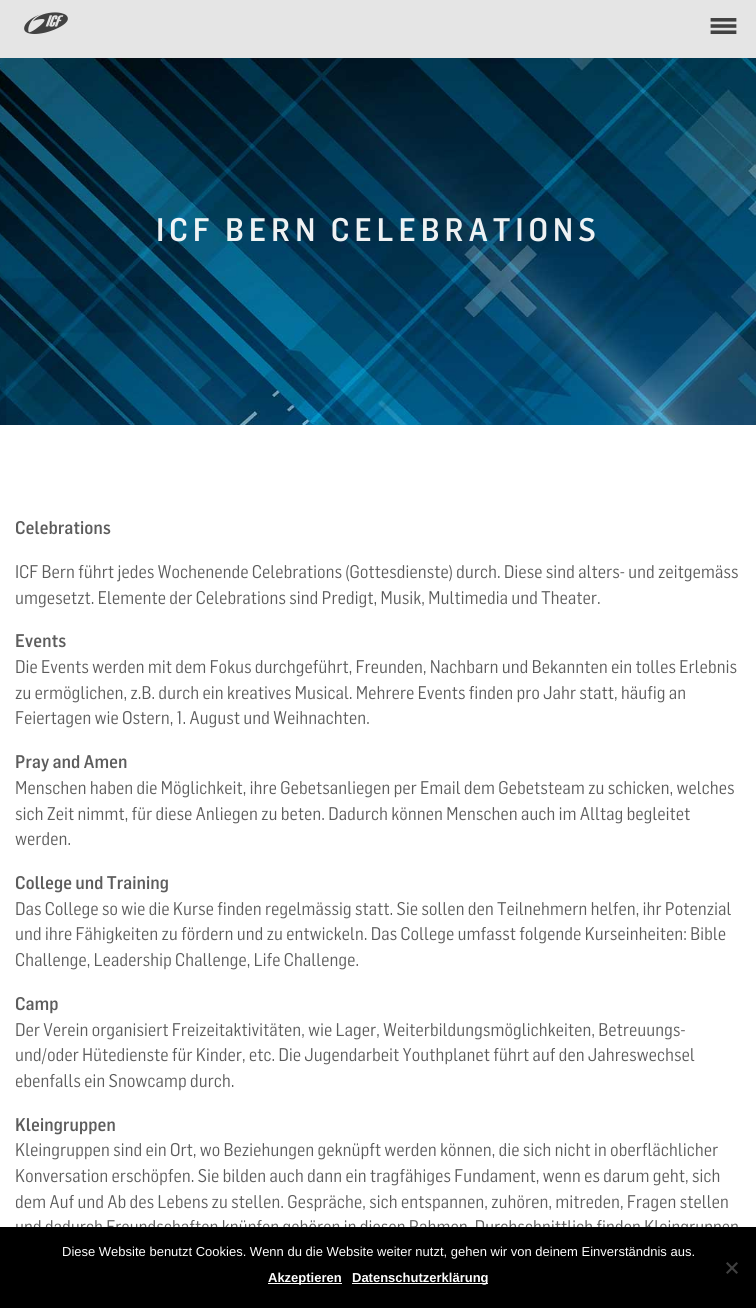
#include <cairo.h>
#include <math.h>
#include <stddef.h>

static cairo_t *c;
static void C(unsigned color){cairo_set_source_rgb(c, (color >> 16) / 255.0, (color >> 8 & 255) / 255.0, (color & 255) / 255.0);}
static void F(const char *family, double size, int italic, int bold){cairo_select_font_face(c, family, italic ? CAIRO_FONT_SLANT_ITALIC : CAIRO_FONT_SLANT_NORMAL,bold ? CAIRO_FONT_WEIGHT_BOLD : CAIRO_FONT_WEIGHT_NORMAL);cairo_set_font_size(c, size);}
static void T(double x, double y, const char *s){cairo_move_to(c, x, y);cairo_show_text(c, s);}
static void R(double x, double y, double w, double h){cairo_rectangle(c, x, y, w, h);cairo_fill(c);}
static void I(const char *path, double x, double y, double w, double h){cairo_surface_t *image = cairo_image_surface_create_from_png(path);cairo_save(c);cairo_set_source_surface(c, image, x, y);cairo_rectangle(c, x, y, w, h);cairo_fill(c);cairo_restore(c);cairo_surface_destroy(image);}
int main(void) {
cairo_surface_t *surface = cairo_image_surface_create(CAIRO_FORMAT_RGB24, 756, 1308);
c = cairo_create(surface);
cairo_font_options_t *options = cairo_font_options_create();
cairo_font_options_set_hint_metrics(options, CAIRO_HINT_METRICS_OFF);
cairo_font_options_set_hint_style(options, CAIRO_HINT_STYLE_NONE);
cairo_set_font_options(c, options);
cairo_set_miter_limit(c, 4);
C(0xffffff);
cairo_paint(c);
C(0xe5e5e5);
R(0,0,756,58);
F("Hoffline",30,0,0);
C(0x424242);
T(21,34,"!");
F("Hoffline",20,0,0);
T(709,34,"—");
I("1.png",0,58,756,367);
I("2.png",158,217,437,25);
I("3.png",16,521,95,14);
I("4.png",16,564,722,18);
I("5.png",16,591,584,17);
I("6.png",16,634,50,14);
I("7.png",16,660,721,17);
I("8.png",15,686,670,17);
I("9.png",16,710,353,18);
I("10.png",16,755,111,17);
I("11.png",16,780,718,18);
I("12.png",15,807,675,17);
I("13.png",15,832,55,14);
I("14.png",16,876,152,17);
I("15.png",16,901,715,18);
I("16.png",16,927,710,17);
I("17.png",16,953,342,17);
I("18.png",16,997,42,17);
I("19.png",16,1023,669,17);
I("20.png",16,1048,679,17);
I("21.png",16,1073,218,18);
I("22.png",16,1118,99,17);
I("23.png",16,1142,702,18);
I("24.png",16,1168,704,18);
I("25.png",16,1194,712,18);
I("26.png",16,1220,722,7);
C(0x000000);
R(0,1227,756,81);
F("Liberation Sans",13,0,0);
C(0xffffff);
T(62,1256,"Diese Website benutzt Cookies. Wenn du die Website weiter nutzt, gehen wir von deinem Einverständnis aus.");
C(0x404040);
cairo_new_path(c);
cairo_move_to(c,736.5,1262);
cairo_line_to(c,738,1263.5);
cairo_line_to(c,727.5,1274);
cairo_line_to(c,726,1272.5);
cairo_close_path(c);
cairo_fill(c);
cairo_new_path(c);
cairo_move_to(c,726,1263.5);
cairo_line_to(c,727.5,1262);
cairo_line_to(c,738,1272.5);
cairo_line_to(c,736.5,1274);
cairo_close_path(c);
cairo_fill(c);
C(0xffffff);
R(268,1283,74,1);
F("Liberation Sans",13,0,1);
T(268,1282,"Akzeptieren");
R(352,1283,136,1);
T(352,1282,"Datenschutzerklärung");
cairo_surface_write_to_png(surface, "o.png");
cairo_font_options_destroy(options);
cairo_destroy(c);
cairo_surface_destroy(surface);
return 0;
}
